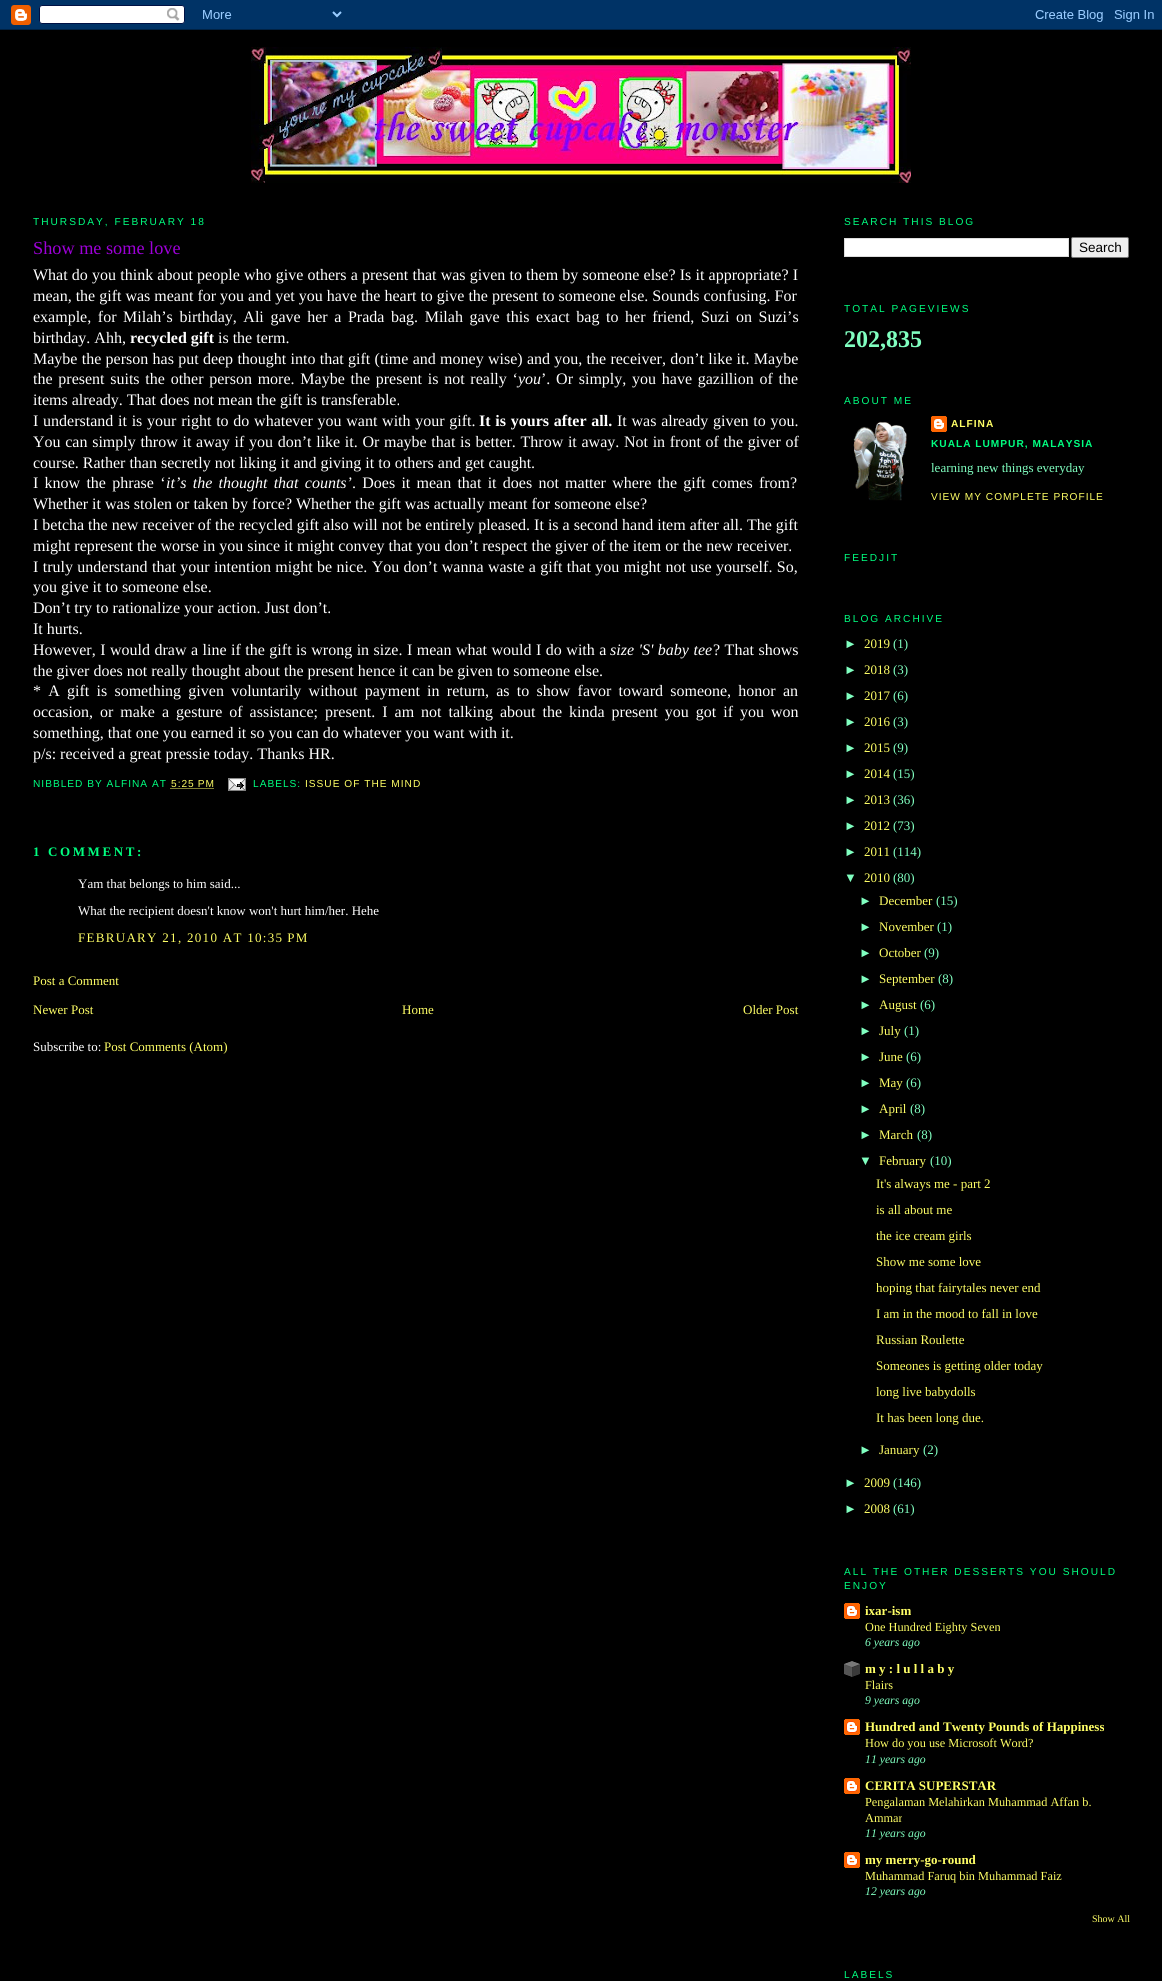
#include <cairo.h>
#include <math.h>
#include <stddef.h>

static cairo_t *c;
static void C(unsigned color){cairo_set_source_rgb(c, (color >> 16) / 255.0, (color >> 8 & 255) / 255.0, (color & 255) / 255.0);}
static void F(const char *family, double size, int italic, int bold){cairo_select_font_face(c, family, italic ? CAIRO_FONT_SLANT_ITALIC : CAIRO_FONT_SLANT_NORMAL,bold ? CAIRO_FONT_WEIGHT_BOLD : CAIRO_FONT_WEIGHT_NORMAL);cairo_set_font_size(c, size);}
static void T(double x, double y, const char *s){cairo_move_to(c, x, y);cairo_show_text(c, s);}
static void L(double x, double y, const char *s, double letter, double word){cairo_move_to(c, x, y);while (*s) {char ch[5] = {0};int n = 0;do ch[n++] = *s++; while ((*s & 0xC0) == 0x80);cairo_show_text(c, ch);cairo_rel_move_to(c, letter + word * (*ch == ' '), 0);}}
static void Q(double x, double y, double w, double h, double r){cairo_new_sub_path(c);cairo_arc(c, x + w - r, y + h - r, r, 0, M_PI / 2);cairo_arc(c, x + r, y + h - r, r, M_PI / 2, M_PI);cairo_arc(c, x + r, y + r, r, M_PI, 1.5 * M_PI);cairo_arc(c, x + w - r, y + r, r, 1.5 * M_PI, 2 * M_PI);cairo_close_path(c);}
static void I(const char *path, double x, double y, double w, double h){cairo_surface_t *image = cairo_image_surface_create_from_png(path);cairo_save(c);cairo_set_source_surface(c, image, x, y);cairo_rectangle(c, x, y, w, h);cairo_fill(c);cairo_restore(c);cairo_surface_destroy(image);}
int main(void) {
cairo_surface_t *surface = cairo_image_surface_create(CAIRO_FORMAT_RGB24, 1162, 1981);
c = cairo_create(surface);
cairo_font_options_t *options = cairo_font_options_create();
cairo_font_options_set_hint_metrics(options, CAIRO_HINT_METRICS_OFF);
cairo_font_options_set_hint_style(options, CAIRO_HINT_STYLE_NONE);
cairo_set_font_options(c, options);
cairo_set_miter_limit(c, 4);
C(0x000000);
cairo_paint(c);
I("1.png",0,0,1162,30);
I("2.png",251,47,660,136);
F("Liberation Sans",10.15,0,0);
C(0x00ff80);
L(33,225,"THURSDAY, FEBRUARY 18",2,0);
F("Liberation Serif",18.25,0,0);
C(0x9d00d8);
T(33,254,"Show me some love");
F("Liberation Serif",16,0,0);
C(0xffffff);
L(33,280,"What do you think about people who give others a present that was given to them by someone else? Is it appropriate? I",0,.2);
T(33,301,"mean, the gift was meant for you and yet you have the heart to give the present to someone else. Sounds confusing. For");
L(33,322,"example, for Milah’s birthday, Ali gave her a Prada bag. Milah gave this exact bag to her friend, Suzi on Suzi’s",0,2.6);
T(33,343,"birthday. Ahh,");
F("Liberation Serif",16,0,1);
T(130,343,"recycled gift");
F("Liberation Serif",16,0,0);
T(218,343,"is the term.");
L(33,364,"Maybe the person has put deep thought into that gift (time and money wise) and you, the receiver, don’t like it. Maybe",0,.3);
L(33,384,"the present suits the other person more. Maybe the present is not really ‘",0,1.75);
F("Liberation Serif",16,1,0);
T(518,384,"you");
F("Liberation Serif",16,0,0);
L(541,384,"’. Or simply, you have gazillion of the",0,1.75);
T(33,405,"items already. That does not mean the gift is transferable.");
L(33,426,"I understand it is your right to do whatever you want with your gift.",0,.75);
F("Liberation Serif",16,0,1);
L(479,426,"It is yours after all.",0,.75);
F("Liberation Serif",16,0,0);
L(617,426,"It was already given to you.",0,.75);
L(33,447,"You can simply throw it away if you don’t like it. Or maybe that is better. Throw it away. Not in front of the giver of",0,.7);
T(33,468,"course. Rather than secretly not liking it and giving it to others and get caught.");
L(33,488,"I know the phrase ‘",0,2.25);
F("Liberation Serif",16,1,0);
L(166,488,"it’s the thought that counts’",0,2.25);
F("Liberation Serif",16,0,0);
L(352,488,". Does it mean that it does not matter where the gift comes from?",0,2.25);
T(33,509,"Whether it was stolen or taken by force? Whether the gift was actually meant for someone else?");
T(33,530,"I betcha the new receiver of the recycled gift also will not be entirely pleased. It is a second hand item after all. The gift");
T(33,551,"might represent the worse in you since it might convey that you don’t respect the giver of the item or the new receiver.");
L(33,572,"I truly understand that your intention might be nice. You don’t wanna waste a gift that you might not use yourself. So,",0,.4);
T(33,592,"you give it to someone else.");
T(33,613,"Don’t try to rationalize your action. Just don’t.");
T(33,634,"It hurts.");
L(33,655,"However, I would draw a line if the gift is wrong in size. I mean what would I do with a",0,.5);
F("Liberation Serif",16,1,0);
L(610,655,"size 'S' baby tee",0,.5);
F("Liberation Serif",16,0,0);
L(713,655,"? That shows",0,.5);
T(33,676,"the giver does not really thought about the present hence it can be given to someone else.");
L(33,696,"* A gift is something given voluntarily without payment in return, as to show favor toward someone, honor an",0,3.25);
L(33,717,"occasion, or make a gesture of assistance; present. I am not talking about the kinda present you got if you won",0,3);
T(33,738,"something, that one you earned it so you can do whatever you want with it.");
T(33,759,"p/s: received a great pressie today. Thanks HR.");
F("Liberation Sans",10.15,0,0);
C(0x00ff80);
L(33,787,"NIBBLED BY ALFINA AT",1,0);
C(0xffff66);
L(171,787,"5:25 PM",1,0);
cairo_new_path(c);
cairo_move_to(c,170.5,788.5);
cairo_line_to(c,214.5,788.5);
cairo_set_line_width(c,1);
cairo_set_dash(c,(double[]){1,1},2,0);
cairo_stroke(c);
I("3.png",228,778,18,13);
C(0x00ff80);
L(253,787,"LABELS:",1,0);
C(0xffff66);
L(305,787,"ISSUE OF THE MIND",1,0);
F("Liberation Serif",13,0,1);
C(0x00ff80);
L(33,856,"1 COMMENT:",2.6,0);
F("Liberation Serif",13,0,0);
C(0xffffff);
T(78,888,"Yam that belongs to him said...");
T(78,915,"What the recipient doesn't know won't hurt him/her. Hehe");
C(0xffff66);
L(78,942,"FEBRUARY 21, 2010 AT 10:35 PM",1.3,0);
T(33,985,"Post a Comment");
T(33,1014,"Newer Post");
T(402,1014,"Home");
T(743,1014,"Older Post");
C(0xffffff);
T(33,1051,"Subscribe to:");
C(0xffff66);
T(104,1051,"Post Comments (Atom)");
F("Liberation Sans",10.15,0,0);
C(0x00ff80);
L(844,225,"SEARCH THIS BLOG",2,0);
C(0xffffff);
cairo_rectangle(c,844.5,238.5,224,18);
cairo_fill_preserve(c);
C(0xdddddd);
cairo_set_dash(c,NULL,0,0);
cairo_stroke(c);
C(0xefefef);
Q(1071.5,237.5,57,20,1.5);
cairo_fill_preserve(c);
C(0x767676);
cairo_stroke(c);
F("Liberation Sans",13.5,0,0);
C(0x000000);
T(1079,252,"Search");
F("Liberation Sans",10.15,0,0);
C(0x00ff80);
L(844,312,"TOTAL PAGEVIEWS",2,0);
F("Liberation Serif",24,0,1);
C(0x80ffc0);
T(844,347,"202,835");
F("Liberation Sans",10.15,0,0);
C(0x00ff80);
L(844,404,"ABOUT ME",2,0);
I("4.png",853,421,54,80);
I("5.png",931,416,16,16);
F("Liberation Sans",10.15,0,1);
C(0xffff66);
L(951,427,"ALFINA",1,0);
C(0x00ff80);
L(931,447,"KUALA LUMPUR, MALAYSIA",1,0);
F("Liberation Serif",13,0,0);
C(0x80ffc0);
T(931,472,"learning new things everyday");
F("Liberation Sans",10.15,0,0);
C(0xffff66);
L(931,500,"VIEW MY COMPLETE PROFILE",1,0);
C(0x00ff80);
L(844,561,"FEEDJIT",2,0);
L(844,622,"BLOG ARCHIVE",2,0);
F("Liberation Sans",13,0,0);
C(0x80ffc0);
T(844,648,"►");
F("Liberation Serif",13,0,0);
C(0xffff66);
T(864,648,"2019");
C(0x80ffc0);
T(893,648,"(1)");
F("Liberation Sans",13,0,0);
T(844,674,"►");
F("Liberation Serif",13,0,0);
C(0xffff66);
T(864,674,"2018");
C(0x80ffc0);
T(893,674,"(3)");
F("Liberation Sans",13,0,0);
T(844,700,"►");
F("Liberation Serif",13,0,0);
C(0xffff66);
T(864,700,"2017");
C(0x80ffc0);
T(893,700,"(6)");
F("Liberation Sans",13,0,0);
T(844,726,"►");
F("Liberation Serif",13,0,0);
C(0xffff66);
T(864,726,"2016");
C(0x80ffc0);
T(893,726,"(3)");
F("Liberation Sans",13,0,0);
T(844,752,"►");
F("Liberation Serif",13,0,0);
C(0xffff66);
T(864,752,"2015");
C(0x80ffc0);
T(893,752,"(9)");
F("Liberation Sans",13,0,0);
T(844,778,"►");
F("Liberation Serif",13,0,0);
C(0xffff66);
T(864,778,"2014");
C(0x80ffc0);
T(893,778,"(15)");
F("Liberation Sans",13,0,0);
T(844,804,"►");
F("Liberation Serif",13,0,0);
C(0xffff66);
T(864,804,"2013");
C(0x80ffc0);
T(893,804,"(36)");
F("Liberation Sans",13,0,0);
T(844,830,"►");
F("Liberation Serif",13,0,0);
C(0xffff66);
T(864,830,"2012");
C(0x80ffc0);
T(893,830,"(73)");
F("Liberation Sans",13,0,0);
T(844,856,"►");
F("Liberation Serif",13,0,0);
C(0xffff66);
T(864,856,"2011");
C(0x80ffc0);
T(893,856,"(114)");
F("Liberation Sans",13,0,0);
T(844,882,"▼");
F("Liberation Serif",13,0,0);
C(0xffff66);
T(864,882,"2010");
C(0x80ffc0);
T(893,882,"(80)");
F("Liberation Sans",13,0,0);
T(859,905,"►");
F("Liberation Serif",13,0,0);
C(0xffff66);
T(879,905,"December");
C(0x80ffc0);
T(936,905,"(15)");
F("Liberation Sans",13,0,0);
T(859,931,"►");
F("Liberation Serif",13,0,0);
C(0xffff66);
T(879,931,"November");
C(0x80ffc0);
T(937,931,"(1)");
F("Liberation Sans",13,0,0);
T(859,957,"►");
F("Liberation Serif",13,0,0);
C(0xffff66);
T(879,957,"October");
C(0x80ffc0);
T(924,957,"(9)");
F("Liberation Sans",13,0,0);
T(859,983,"►");
F("Liberation Serif",13,0,0);
C(0xffff66);
T(879,983,"September");
C(0x80ffc0);
T(938,983,"(8)");
F("Liberation Sans",13,0,0);
T(859,1009,"►");
F("Liberation Serif",13,0,0);
C(0xffff66);
T(879,1009,"August");
C(0x80ffc0);
T(920,1009,"(6)");
F("Liberation Sans",13,0,0);
T(859,1035,"►");
F("Liberation Serif",13,0,0);
C(0xffff66);
T(879,1035,"July");
C(0x80ffc0);
T(904,1035,"(1)");
F("Liberation Sans",13,0,0);
T(859,1061,"►");
F("Liberation Serif",13,0,0);
C(0xffff66);
T(879,1061,"June");
C(0x80ffc0);
T(906,1061,"(6)");
F("Liberation Sans",13,0,0);
T(859,1087,"►");
F("Liberation Serif",13,0,0);
C(0xffff66);
T(879,1087,"May");
C(0x80ffc0);
T(906,1087,"(6)");
F("Liberation Sans",13,0,0);
T(859,1113,"►");
F("Liberation Serif",13,0,0);
C(0xffff66);
T(879,1113,"April");
C(0x80ffc0);
T(910,1113,"(8)");
F("Liberation Sans",13,0,0);
T(859,1139,"►");
F("Liberation Serif",13,0,0);
C(0xffff66);
T(879,1139,"March");
C(0x80ffc0);
T(917,1139,"(8)");
F("Liberation Sans",13,0,0);
T(859,1165,"▼");
F("Liberation Serif",13,0,0);
C(0xffff66);
T(879,1165,"February");
C(0x80ffc0);
T(930,1165,"(10)");
C(0xffff66);
T(876,1188,"It's always me - part 2");
T(876,1214,"is all about me");
T(876,1240,"the ice cream girls");
T(876,1266,"Show me some love");
T(876,1292,"hoping that fairytales never end");
T(876,1318,"I am in the mood to fall in love");
T(876,1344,"Russian Roulette");
T(876,1370,"Someones is getting older today");
T(876,1396,"long live babydolls");
T(876,1422,"It has been long due.");
F("Liberation Sans",13,0,0);
C(0x80ffc0);
T(859,1454,"►");
F("Liberation Serif",13,0,0);
C(0xffff66);
T(879,1454,"January");
C(0x80ffc0);
T(923,1454,"(2)");
F("Liberation Sans",13,0,0);
T(844,1487,"►");
F("Liberation Serif",13,0,0);
C(0xffff66);
T(864,1487,"2009");
C(0x80ffc0);
T(893,1487,"(146)");
F("Liberation Sans",13,0,0);
T(844,1513,"►");
F("Liberation Serif",13,0,0);
C(0xffff66);
T(864,1513,"2008");
C(0x80ffc0);
T(893,1513,"(61)");
F("Liberation Sans",10.15,0,0);
C(0x00ff80);
L(844,1575,"ALL THE OTHER DESSERTS YOU SHOULD",2,0);
L(844,1589,"ENJOY",2,0);
I("6.png",844,1603,16,16);
F("Liberation Serif",13,0,1);
C(0xffff66);
T(865,1615,"ixar-ism");
F("Liberation Serif",12.3,0,0);
T(865,1631,"One Hundred Eighty Seven");
F("Liberation Serif",11.75,1,0);
C(0x80ffc0);
T(865,1646,"6 years ago");
I("7.png",844,1661,16,16);
F("Liberation Serif",13,0,1);
C(0xffff66);
T(865,1673,"m y : l u l l a b y");
F("Liberation Serif",12.3,0,0);
T(865,1689,"Flairs");
F("Liberation Serif",11.75,1,0);
C(0x80ffc0);
T(865,1704,"9 years ago");
I("6.png",844,1719,16,16);
F("Liberation Serif",13,0,1);
C(0xffff66);
T(865,1731,"Hundred and Twenty Pounds of Happiness");
F("Liberation Serif",12.3,0,0);
T(865,1747,"How do you use Microsoft Word?");
F("Liberation Serif",11.75,1,0);
C(0x80ffc0);
T(865,1763,"11 years ago");
I("6.png",844,1778,16,16);
F("Liberation Serif",13,0,1);
C(0xffff66);
T(865,1790,"CERITA SUPERSTAR");
F("Liberation Serif",12.3,0,0);
T(865,1806,"Pengalaman Melahirkan Muhammad Affan b.");
T(865,1822,"Ammar");
F("Liberation Serif",11.75,1,0);
C(0x80ffc0);
T(865,1837,"11 years ago");
I("6.png",844,1852,16,16);
F("Liberation Serif",13,0,1);
C(0xffff66);
T(865,1864,"my merry-go-round");
F("Liberation Serif",12.3,0,0);
T(865,1880,"Muhammad Faruq bin Muhammad Faiz");
F("Liberation Serif",11.75,1,0);
C(0x80ffc0);
T(865,1895,"12 years ago");
F("Liberation Serif",10,0,0);
C(0xffff66);
T(1092,1922,"Show All");
F("Liberation Sans",10.15,0,0);
C(0x00ff80);
L(844,1978,"LABELS",2,0);
cairo_surface_write_to_png(surface, "o.png");
cairo_font_options_destroy(options);
cairo_destroy(c);
cairo_surface_destroy(surface);
return 0;
}
